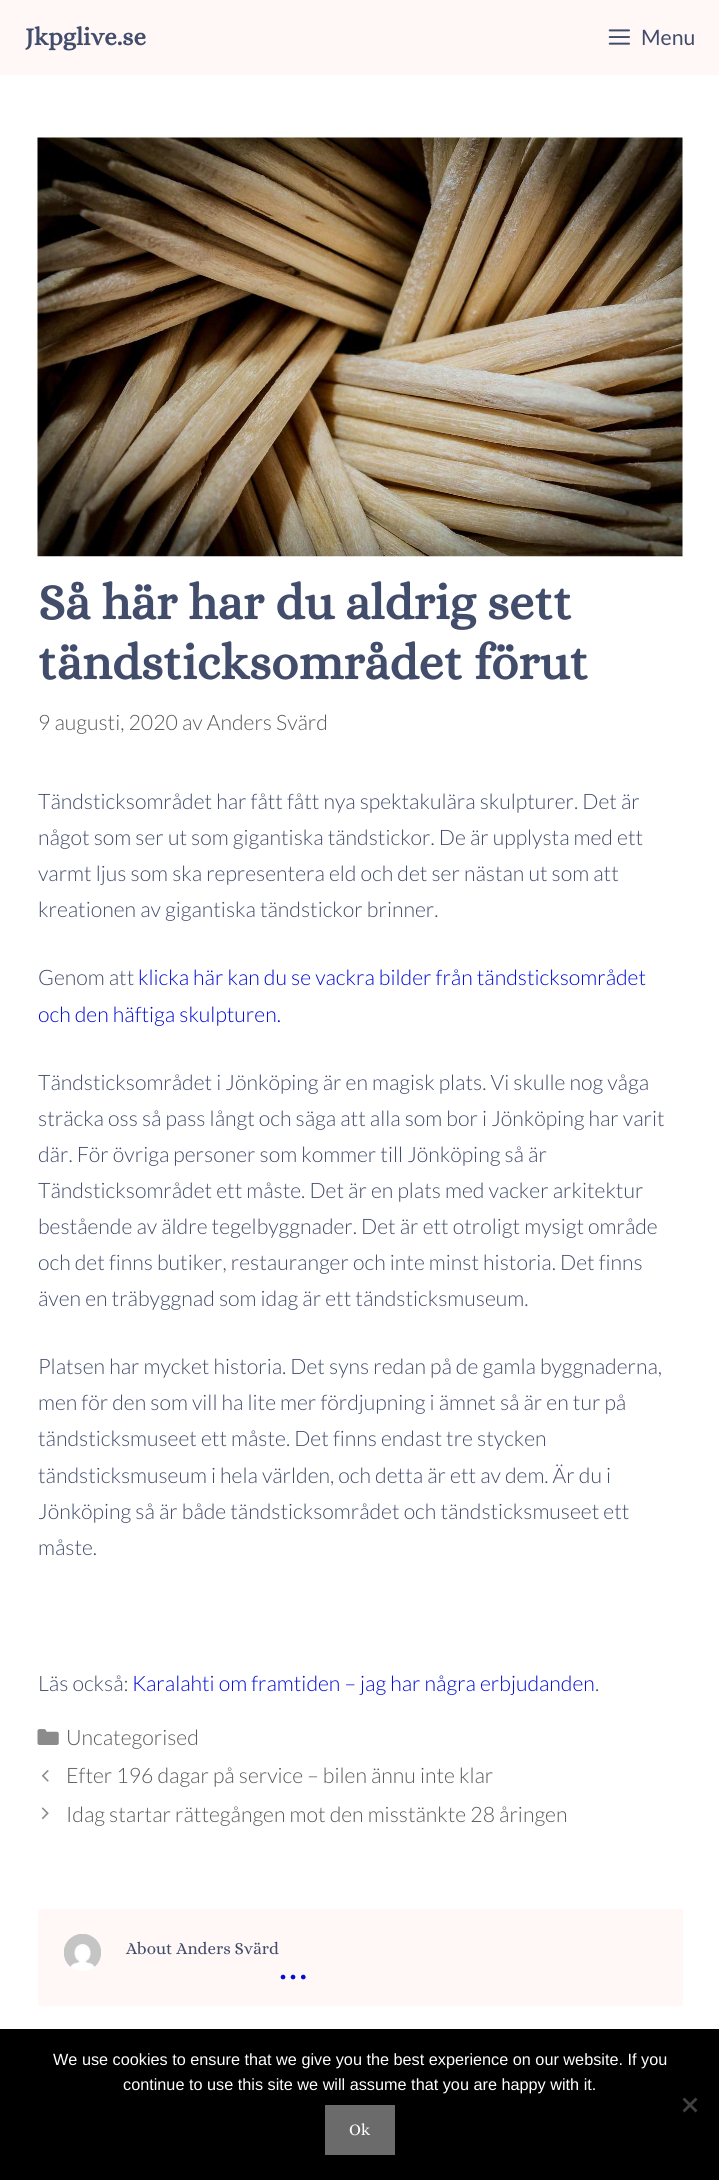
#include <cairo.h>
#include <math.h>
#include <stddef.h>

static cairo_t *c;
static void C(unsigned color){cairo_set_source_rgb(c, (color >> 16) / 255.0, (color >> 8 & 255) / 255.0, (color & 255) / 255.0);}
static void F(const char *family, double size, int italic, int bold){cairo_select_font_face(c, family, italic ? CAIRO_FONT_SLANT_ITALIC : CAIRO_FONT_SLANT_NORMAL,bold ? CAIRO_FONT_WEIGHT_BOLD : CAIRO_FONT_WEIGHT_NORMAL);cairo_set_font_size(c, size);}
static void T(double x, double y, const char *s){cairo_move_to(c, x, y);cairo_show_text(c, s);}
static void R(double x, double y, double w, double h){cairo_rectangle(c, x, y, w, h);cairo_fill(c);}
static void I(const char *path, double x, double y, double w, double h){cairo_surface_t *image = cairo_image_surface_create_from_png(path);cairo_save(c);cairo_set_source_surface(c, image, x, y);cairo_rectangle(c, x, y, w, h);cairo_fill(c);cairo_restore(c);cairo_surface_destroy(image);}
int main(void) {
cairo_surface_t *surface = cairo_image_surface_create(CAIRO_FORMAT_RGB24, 719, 2180);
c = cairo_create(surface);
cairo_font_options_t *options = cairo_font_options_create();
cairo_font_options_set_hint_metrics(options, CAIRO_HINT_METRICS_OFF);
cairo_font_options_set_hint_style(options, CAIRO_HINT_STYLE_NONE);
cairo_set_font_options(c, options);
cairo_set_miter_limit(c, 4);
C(0xffffff);
cairo_paint(c);
C(0xfff8f7);
R(0,0,719,75);
F("Alice",25,0,1);
C(0x424c6b);
T(25,45,"Jkpglive.se");
I("1.png",608,29,22,16);
F("Lato",21.25,0,0);
T(641,45,"Menu");
I("2.png",37,137,646,420);
F("Alice",50,0,1);
T(38,619,"Så här har du aldrig sett");
T(38,679,"tändsticksområdet förut");
F("Lato Light",21.25,0,0);
C(0x595959);
T(38,730,"9 augusti, 2020 av Anders Svärd");
C(0x424c6b);
T(38,809,"Tändsticksområdet har fått fått nya spektakulära skulpturer. Det är");
T(38,845,"något som ser ut som gigantiska tändstickor. De är upplysta med ett");
T(38,881,"varmt ljus som ska representera eld och det ser nästan ut som att");
T(38,917,"kreationen av gigantiska tändstickor brinner.");
T(38,985,"Genom att");
C(0x020cd3);
T(138,985,"klicka här kan du se vackra bilder från tändsticksområdet");
T(38,1022,"och den häftiga skulpturen.");
C(0x424c6b);
T(38,1090,"Tändsticksområdet i Jönköping är en magisk plats. Vi skulle nog våga");
T(38,1126,"sträcka oss så pass långt och säga att alla som bor i Jönköping har varit");
T(38,1162,"där. För övriga personer som kommer till Jönköping så är");
T(38,1198,"Tändsticksområdet ett måste. Det är en plats med vacker arkitektur");
T(38,1234,"bestående av äldre tegelbyggnader. Det är ett otroligt mysigt område");
T(38,1270,"och det finns butiker, restauranger och inte minst historia. Det finns");
T(38,1306,"även en träbyggnad som idag är ett tändsticksmuseum.");
T(38,1374,"Platsen har mycket historia. Det syns redan på de gamla byggnaderna,");
T(38,1410,"men för den som vill ha lite mer fördjupning i ämnet så är en tur på");
T(38,1446,"tändsticksmuseet ett måste. Det finns endast tre stycken");
T(38,1483,"tändsticksmuseum i hela världen, och detta är ett av dem. Är du i");
T(38,1519,"Jönköping så är både tändsticksområdet och tändsticksmuseet ett");
T(38,1555,"måste.");
T(38,1691,"Läs också:");
C(0x020cd3);
T(132,1691,"Karalahti om framtiden – jag har några erbjudanden");
C(0x424c6b);
T(595,1691,".");
I("3.png",37,1729,22,16);
C(0x595959);
T(66,1745,"Uncategorised");
I("4.png",41,1770,8,12);
T(66,1783,"Efter 196 dagar på service – bilen ännu inte klar");
I("5.png",41,1807,8,13);
T(66,1822,"Idag startar rättegången mot den misstänkte 28 åringen");
C(0xfff8f7);
R(38,1909,645,97);
I("6.png",63,1934,38,37);
F("Alice",17,0,0);
C(0x424c6b);
T(126,1954,"About Anders Svärd");
F("Lato Light",51,0,0);
C(0x020cd3);
T(278,1979,"...");
C(0x000000);
R(0,2029,719,151);
F("Liberation Sans",16.25,0,0);
C(0xffffff);
T(53,2065,"We use cookies to ensure that we give you the best experience on our website. If you");
T(123,2090,"continue to use this site we will assume that you are happy with it.");
C(0x404040);
cairo_new_path(c);
cairo_move_to(c,695.5,2097.5);
cairo_line_to(c,697.5,2099.5);
cairo_line_to(c,684.5,2112.5);
cairo_line_to(c,682.5,2110.5);
cairo_close_path(c);
cairo_fill(c);
cairo_new_path(c);
cairo_move_to(c,682.5,2099.5);
cairo_line_to(c,684.5,2097.5);
cairo_line_to(c,697.5,2110.5);
cairo_line_to(c,695.5,2112.5);
cairo_close_path(c);
cairo_fill(c);
C(0x6b6b6b);
R(325,2105,70,50);
F("Alice",16.25,0,0);
C(0xffffff);
T(349,2135,"Ok");
cairo_surface_write_to_png(surface, "o.png");
cairo_font_options_destroy(options);
cairo_destroy(c);
cairo_surface_destroy(surface);
return 0;
}
